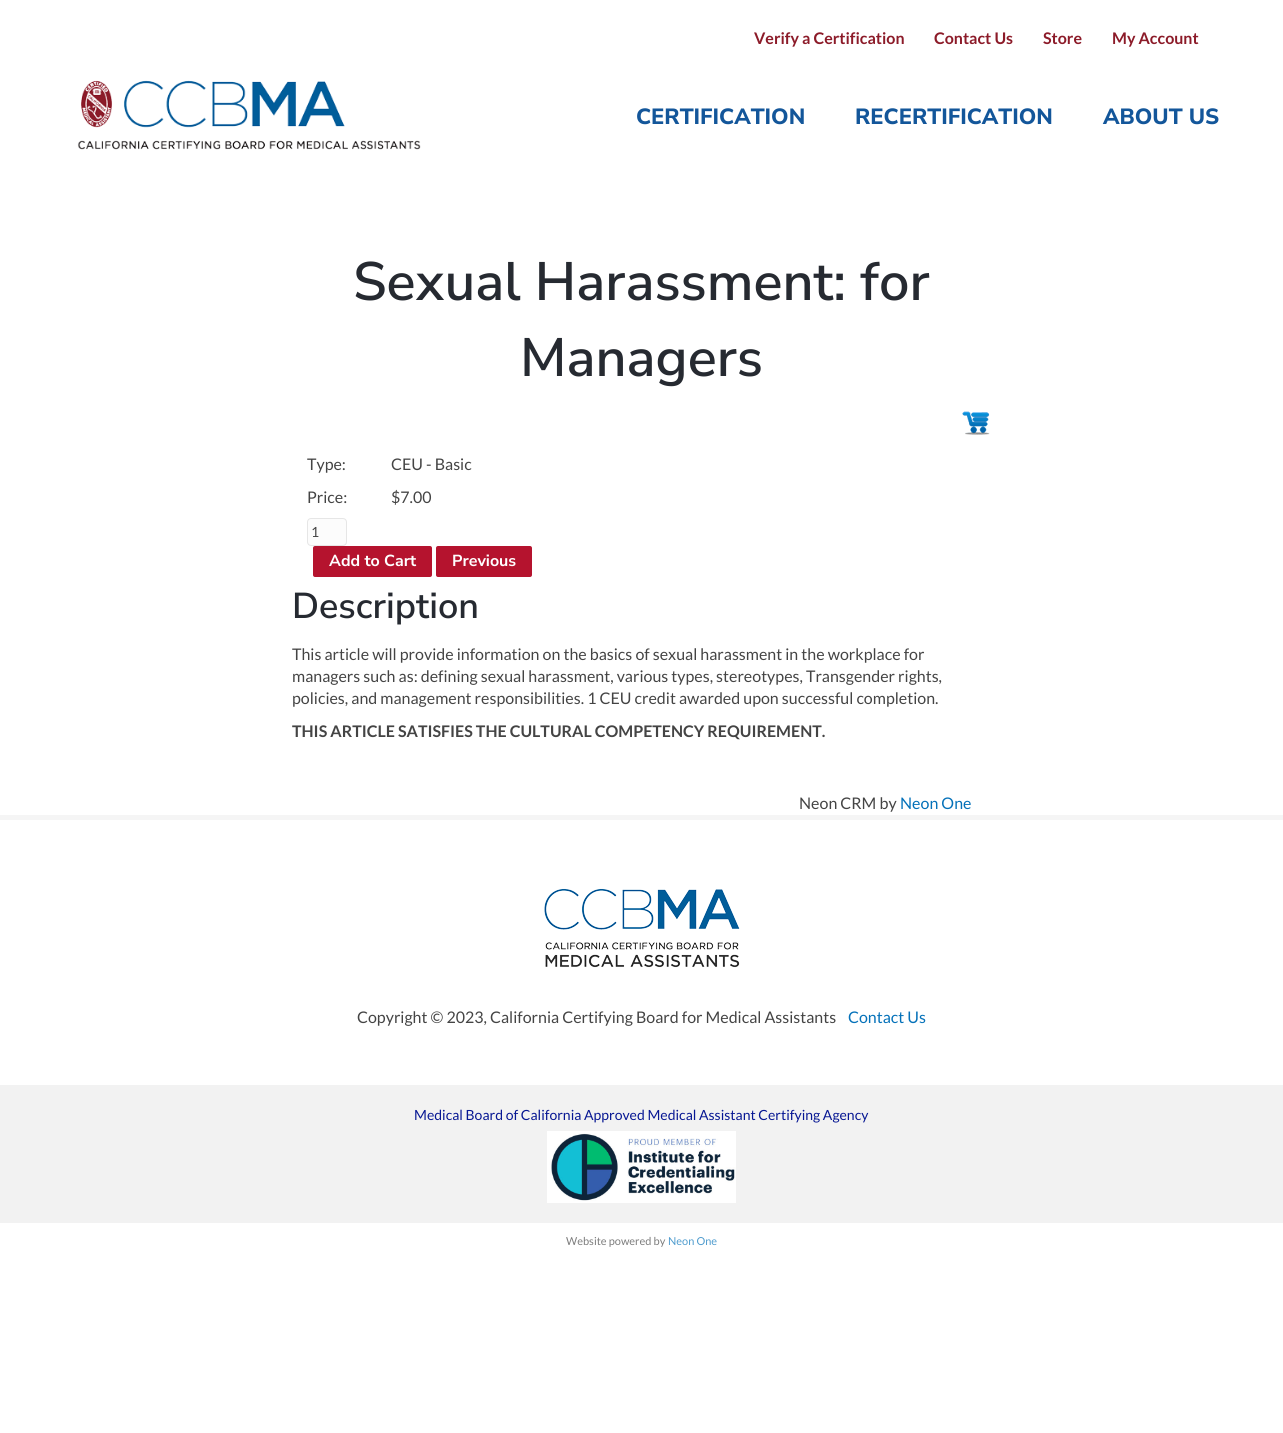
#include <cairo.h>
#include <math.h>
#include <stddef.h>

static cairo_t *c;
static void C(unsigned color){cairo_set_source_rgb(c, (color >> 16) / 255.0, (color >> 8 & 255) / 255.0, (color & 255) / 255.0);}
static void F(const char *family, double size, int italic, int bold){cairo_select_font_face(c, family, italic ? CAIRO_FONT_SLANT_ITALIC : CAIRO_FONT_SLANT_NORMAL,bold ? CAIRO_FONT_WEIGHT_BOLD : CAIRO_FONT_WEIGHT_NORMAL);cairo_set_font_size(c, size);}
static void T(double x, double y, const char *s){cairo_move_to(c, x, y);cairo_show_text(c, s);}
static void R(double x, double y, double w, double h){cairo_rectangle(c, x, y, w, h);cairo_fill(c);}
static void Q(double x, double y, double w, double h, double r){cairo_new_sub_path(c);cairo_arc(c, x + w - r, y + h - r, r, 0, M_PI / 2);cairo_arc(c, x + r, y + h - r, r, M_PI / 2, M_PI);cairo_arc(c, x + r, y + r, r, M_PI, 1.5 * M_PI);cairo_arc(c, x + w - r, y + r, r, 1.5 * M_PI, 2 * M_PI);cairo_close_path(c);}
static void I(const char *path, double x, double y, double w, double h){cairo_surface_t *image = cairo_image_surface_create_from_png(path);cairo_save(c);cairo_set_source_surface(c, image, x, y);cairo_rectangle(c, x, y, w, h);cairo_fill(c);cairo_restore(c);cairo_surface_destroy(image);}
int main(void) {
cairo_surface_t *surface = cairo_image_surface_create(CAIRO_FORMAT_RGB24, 1283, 1433);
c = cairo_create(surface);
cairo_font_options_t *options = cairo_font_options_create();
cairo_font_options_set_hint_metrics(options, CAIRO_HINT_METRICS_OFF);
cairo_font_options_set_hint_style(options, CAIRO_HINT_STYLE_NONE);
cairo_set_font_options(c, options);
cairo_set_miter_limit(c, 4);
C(0xffffff);
cairo_paint(c);
F("Lato",16,0,1);
C(0x8c1b29);
T(754,44,"Verify a Certification");
T(934,44,"Contact Us");
T(1043,44,"Store");
T(1112,44,"My Account");
I("1.png",77,80,344,70);
F("Nunito Sans ExtraBold",22,0,0);
C(0x13569a);
T(636,124,"CERTIFICATION");
T(855,124,"RECERTIFICATION");
T(1103,124,"ABOUT US");
F("Nunito Sans SemiBold",54,0,0);
C(0x262a31);
T(353,300,"Sexual Harassment: for");
T(520,376,"Managers");
I("2.png",962,411,28,24);
F("Lato",16,0,0);
C(0x444444);
T(307,470,"Type:");
T(391,470,"CEU - Basic");
T(307,503,"Price:");
T(391,503,"$7.00");
C(0xfcfcfc);
Q(307.5,518.5,39,27,3.5);
cairo_fill_preserve(c);
C(0xe6e6e6);
cairo_set_line_width(c,1);
cairo_stroke(c);
F("Lato",14,0,0);
C(0x444444);
T(311,537,"1");
C(0xb5132e);
Q(313,546,119,31,2);
cairo_fill(c);
F("Nunito Sans",16,0,1);
C(0xffffff);
T(329,566,"Add to Cart");
C(0xb5132e);
Q(436,546,96,31,2);
cairo_fill(c);
C(0xffffff);
T(452,566,"Previous");
F("Nunito Sans SemiBold",36,0,0);
C(0x262a31);
T(292,618,"Description");
F("Lato",16,0,0);
C(0x444444);
T(292,660,"This article will provide information on the basics of sexual harassment in the workplace for");
T(292,682,"managers such as: defining sexual harassment, various types, stereotypes, Transgender rights,");
T(292,704,"policies, and management responsibilities. 1 CEU credit awarded upon successful completion.");
F("Lato",16,0,1);
T(292,737,"THIS ARTICLE SATISFIES THE CULTURAL COMPETENCY REQUIREMENT.");
F("Lato",16,0,0);
T(799,809,"Neon CRM by");
C(0x0471b9);
T(900,809,"Neon One");
C(0xf5f5f5);
R(0,815,1283,5);
I("3.png",544,888,196,80);
C(0x444444);
T(357,1023,"Copyright © 2023, California Certifying Board for Medical Assistants");
C(0x0471b9);
T(848,1023,"Contact Us");
C(0xf2f2f2);
R(0,1085,1283,138);
F("Lato",14,0,0);
C(0x071793);
T(414,1120,"Medical Board of California Approved Medical Assistant Certifying Agency");
I("4.png",547,1131,189,72);
F("Lato",11,0,0);
C(0x7c7c7c);
T(566,1245,"Website powered by");
C(0x4f9cce);
T(668,1245,"Neon One");
cairo_surface_write_to_png(surface, "o.png");
cairo_font_options_destroy(options);
cairo_destroy(c);
cairo_surface_destroy(surface);
return 0;
}
